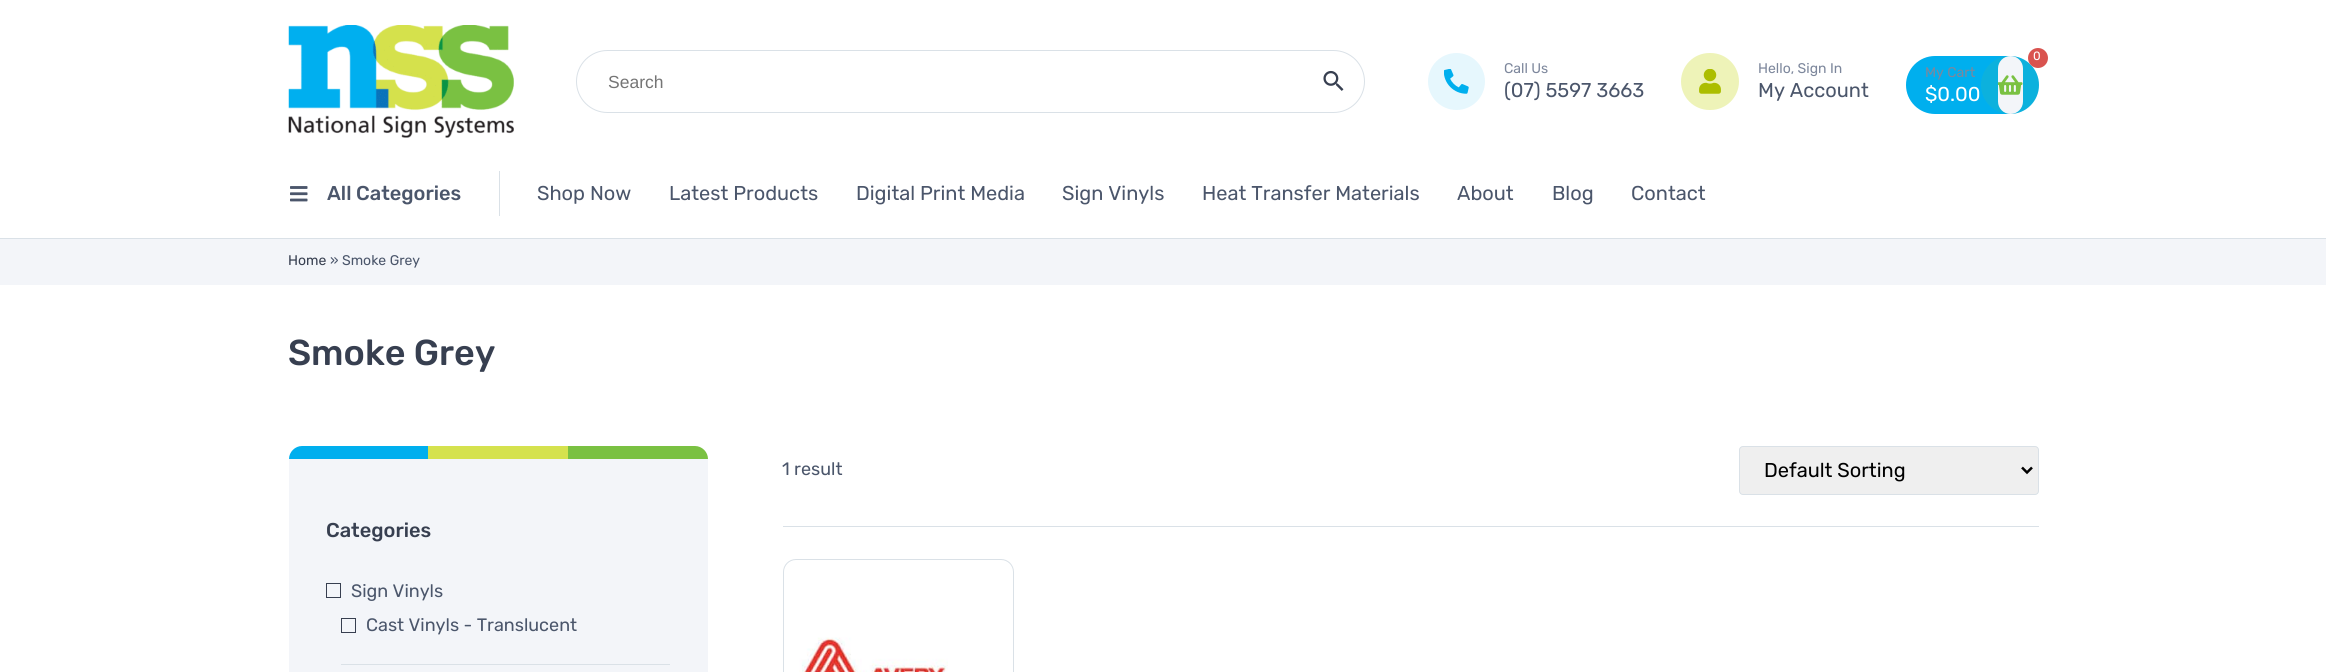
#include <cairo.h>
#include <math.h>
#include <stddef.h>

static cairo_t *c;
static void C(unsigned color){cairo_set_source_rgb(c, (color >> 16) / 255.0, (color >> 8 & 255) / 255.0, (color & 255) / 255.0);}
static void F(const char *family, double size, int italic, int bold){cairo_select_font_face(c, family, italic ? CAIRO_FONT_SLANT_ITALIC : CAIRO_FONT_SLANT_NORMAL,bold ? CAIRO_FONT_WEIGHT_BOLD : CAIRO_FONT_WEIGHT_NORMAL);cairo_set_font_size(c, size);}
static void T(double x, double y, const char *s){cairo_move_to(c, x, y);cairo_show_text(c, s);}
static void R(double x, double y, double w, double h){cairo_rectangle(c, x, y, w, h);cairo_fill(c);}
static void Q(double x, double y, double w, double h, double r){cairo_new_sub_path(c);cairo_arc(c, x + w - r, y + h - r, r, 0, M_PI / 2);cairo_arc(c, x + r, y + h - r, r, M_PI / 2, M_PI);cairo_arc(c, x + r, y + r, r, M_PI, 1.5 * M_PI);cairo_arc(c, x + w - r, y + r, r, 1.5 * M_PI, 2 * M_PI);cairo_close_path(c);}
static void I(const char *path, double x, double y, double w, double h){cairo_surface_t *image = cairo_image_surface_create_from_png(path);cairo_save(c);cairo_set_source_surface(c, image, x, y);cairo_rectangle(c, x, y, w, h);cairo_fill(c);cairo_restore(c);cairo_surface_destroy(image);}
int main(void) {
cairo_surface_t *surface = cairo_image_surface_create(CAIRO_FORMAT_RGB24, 2326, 672);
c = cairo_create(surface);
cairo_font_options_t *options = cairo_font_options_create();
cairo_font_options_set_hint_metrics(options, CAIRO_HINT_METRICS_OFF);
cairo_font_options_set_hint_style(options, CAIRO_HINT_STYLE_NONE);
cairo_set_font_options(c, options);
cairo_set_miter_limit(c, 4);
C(0xffffff);
cairo_paint(c);
I("1.png",288,25,226,113);
Q(576.5,50.5,788,62,31);
C(0xdae1e7);
cairo_set_line_width(c,1);
cairo_stroke(c);
F("Liberation Sans",17.5,0,0);
C(0x757575);
T(608,88,"Search");
I("2.png",1323,70,21,21);
C(0xe6f7fd);
cairo_arc(c,1456.5,81.5,28.5,0,2 * M_PI);
cairo_fill(c);
I("3.png",1444,69,25,25);
F("Rubik",14,0,0);
C(0x7d879c);
T(1504,73,"Call Us");
F("Rubik",20,0,0);
C(0x4b566b);
T(1504,97,"(07) 5597 3663");
C(0xeef3b8);
Q(1681,53,58,57,28.5);
cairo_fill(c);
I("4.png",1699,69,22,25);
F("Rubik",14,0,0);
C(0x7d879c);
T(1758,73,"Hello, Sign In");
F("Rubik",20,0,0);
C(0x4b566b);
T(1758,97,"My Account");
C(0x00afee);
Q(1906,56,133,58,29);
cairo_fill(c);
cairo_set_source_rgba(c,0.478,0.757,0.259,0.1);
cairo_arc(c,2010,85,29,0,2 * M_PI);
cairo_fill(c);
C(0xf3f5f9);
Q(1998,56,25,58,12.5);
cairo_fill(c);
I("5.png",1998,75,25,20);
C(0xd9534f);
cairo_arc(c,2038,58,10,0,2 * M_PI);
cairo_fill(c);
F("Rubik",12,0,0);
C(0xffffff);
T(2033,60,"0");
F("Rubik",14,0,0);
C(0x7d879c);
T(1925,77,"My Cart");
F("Rubik",20,0,0);
C(0xffffff);
T(1925,101,"$0.00");
C(0xdae1e7);
R(499,171,1,45);
I("6.png",290,186,18,16);
F("Rubik Medium",20,0,0);
C(0x4b566b);
T(327,200,"All Categories");
F("Rubik",20,0,0);
T(537,200,"Shop Now");
T(669,200,"Latest Products");
T(856,200,"Digital Print Media");
T(1062,200,"Sign Vinyls");
T(1202,200,"Heat Transfer Materials");
T(1457,200,"About");
T(1552,200,"Blog");
T(1631,200,"Contact");
C(0xf3f5f9);
R(0,239,2326,46);
C(0xdae1e7);
R(0,238,2326,1);
F("Rubik",14,0,0);
C(0x373f50);
T(288,265,"Home");
C(0x4b566b);
T(330,265,"» Smoke Grey");
F("Rubik Medium",36,0,0);
C(0x373f50);
T(288,365,"Smoke Grey");
F("Rubik",18,0,0);
C(0x4b566b);
T(782,475,"1 result");
C(0xefefef);
Q(1739.5,446.5,299,48,3.5);
cairo_fill_preserve(c);
C(0xdae1e7);
cairo_stroke(c);
cairo_new_path(c);
cairo_move_to(c,2022,467.5);
cairo_line_to(c,2027,472.5);
cairo_line_to(c,2032,467.5);
C(0x000000);
cairo_set_line_width(c,2.5);
cairo_stroke(c);
F("Rubik",20,0,0);
T(1764,477,"Default Sorting");
C(0xdae1e7);
R(783,526,1256,1);
Q(783.5,559.5,230,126,12.5);
cairo_set_line_width(c,1);
cairo_stroke(c);
I("7.png",799,637,149,35);
cairo_save(c);
cairo_new_path(c);
cairo_move_to(c,302,446);
cairo_line_to(c,695,446);
cairo_curve_to(c,702,446,708,452,708,459);
cairo_line_to(c,289,459);
cairo_curve_to(c,289,452,295,446,302,446);
cairo_close_path(c);
cairo_clip(c);
C(0x00afee);
R(289,446,139,13);
cairo_restore(c);
C(0xd5e24e);
R(428,446,140,13);
cairo_save(c);
cairo_new_path(c);
cairo_move_to(c,302,446);
cairo_line_to(c,695,446);
cairo_curve_to(c,702,446,708,452,708,459);
cairo_line_to(c,289,459);
cairo_curve_to(c,289,452,295,446,302,446);
cairo_close_path(c);
cairo_clip(c);
C(0x7ac142);
R(568,446,140,13);
cairo_restore(c);
C(0xf3f5f9);
R(289,459,419,213);
F("Rubik Medium",20,0,0);
C(0x373f50);
T(326,537,"Categories");
cairo_rectangle(c,326.5,583.5,14,14);
cairo_stroke(c);
F("Rubik",18,0,0);
C(0x4b566b);
T(351,597,"Sign Vinyls");
C(0xdae1e7);
R(341,664,329,1);
cairo_rectangle(c,341.5,618.5,14,14);
C(0x373f50);
cairo_stroke(c);
C(0x4b566b);
T(366,631,"Cast Vinyls - Translucent");
cairo_surface_write_to_png(surface, "o.png");
cairo_font_options_destroy(options);
cairo_destroy(c);
cairo_surface_destroy(surface);
return 0;
}
